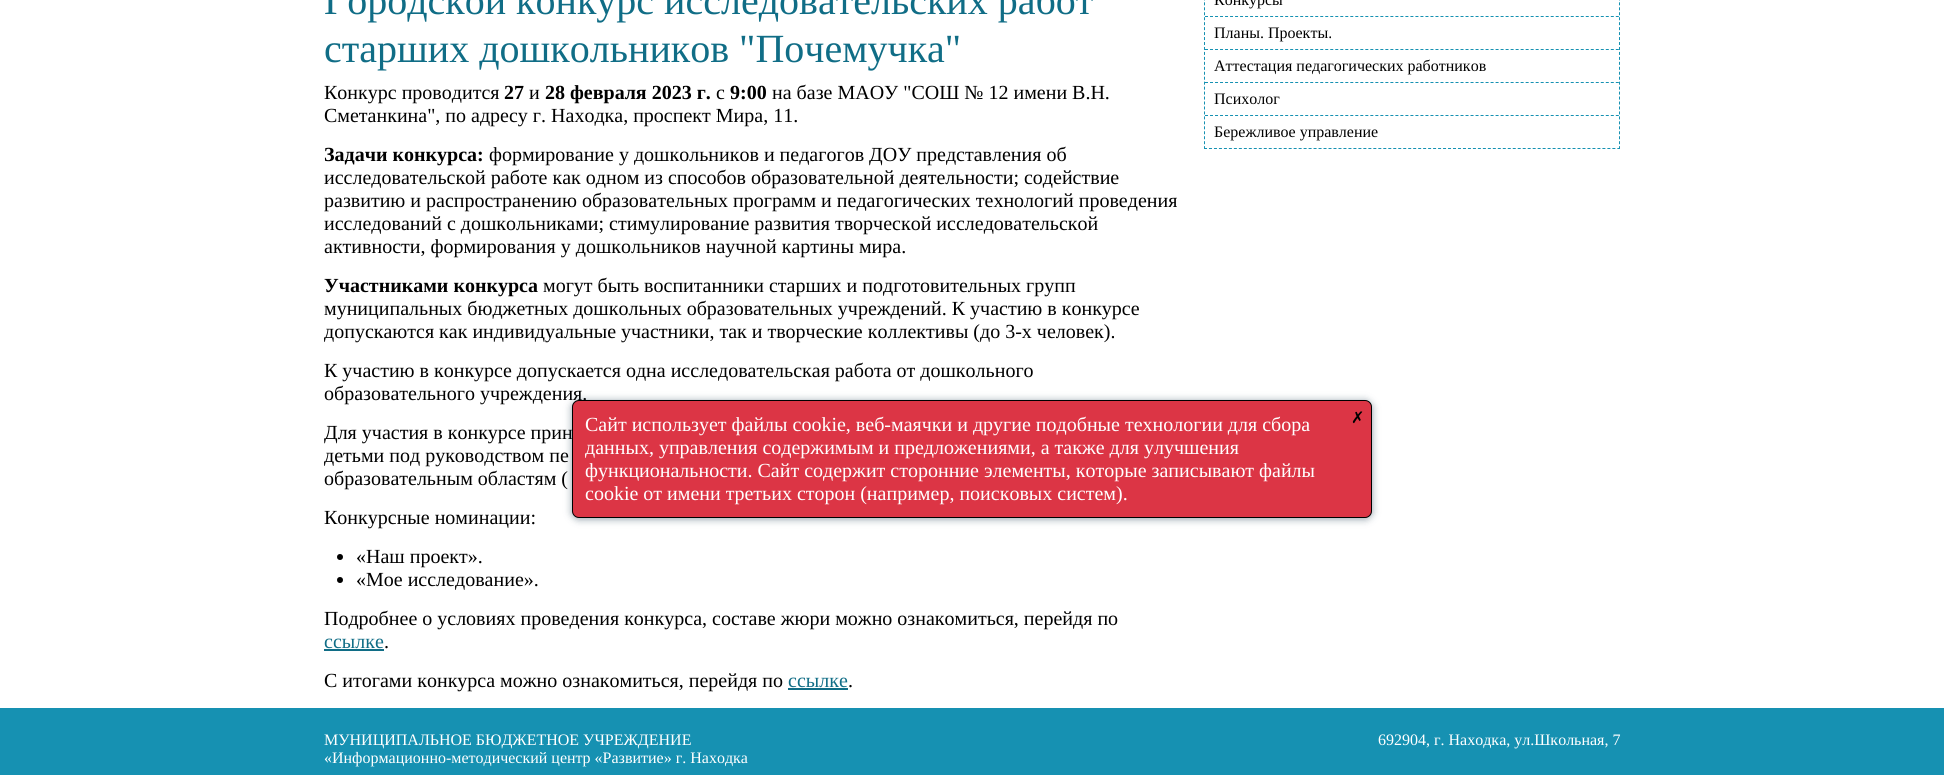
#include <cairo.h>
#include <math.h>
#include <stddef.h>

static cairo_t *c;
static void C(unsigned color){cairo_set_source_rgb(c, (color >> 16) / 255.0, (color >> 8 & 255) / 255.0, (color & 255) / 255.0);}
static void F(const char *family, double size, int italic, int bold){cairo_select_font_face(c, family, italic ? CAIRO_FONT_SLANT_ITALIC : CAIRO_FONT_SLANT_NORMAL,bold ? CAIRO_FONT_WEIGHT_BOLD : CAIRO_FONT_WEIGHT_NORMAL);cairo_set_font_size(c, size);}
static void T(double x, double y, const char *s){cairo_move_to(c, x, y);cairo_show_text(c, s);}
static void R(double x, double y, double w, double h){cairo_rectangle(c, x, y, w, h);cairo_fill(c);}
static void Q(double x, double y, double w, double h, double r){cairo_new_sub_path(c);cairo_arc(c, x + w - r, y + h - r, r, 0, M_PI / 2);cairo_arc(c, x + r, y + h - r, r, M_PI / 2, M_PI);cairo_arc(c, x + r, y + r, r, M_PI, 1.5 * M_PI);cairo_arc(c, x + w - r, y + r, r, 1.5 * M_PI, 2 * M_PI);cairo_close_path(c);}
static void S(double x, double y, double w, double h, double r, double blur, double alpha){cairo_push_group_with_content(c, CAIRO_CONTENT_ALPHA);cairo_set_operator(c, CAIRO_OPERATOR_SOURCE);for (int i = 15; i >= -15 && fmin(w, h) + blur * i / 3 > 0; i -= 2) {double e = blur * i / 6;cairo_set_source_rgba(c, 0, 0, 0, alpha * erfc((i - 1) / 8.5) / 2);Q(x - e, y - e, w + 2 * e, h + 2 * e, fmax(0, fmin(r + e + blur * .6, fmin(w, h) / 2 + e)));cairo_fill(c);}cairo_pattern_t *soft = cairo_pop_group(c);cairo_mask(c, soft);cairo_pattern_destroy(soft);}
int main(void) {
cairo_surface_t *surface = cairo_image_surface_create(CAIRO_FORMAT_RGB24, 1944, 775);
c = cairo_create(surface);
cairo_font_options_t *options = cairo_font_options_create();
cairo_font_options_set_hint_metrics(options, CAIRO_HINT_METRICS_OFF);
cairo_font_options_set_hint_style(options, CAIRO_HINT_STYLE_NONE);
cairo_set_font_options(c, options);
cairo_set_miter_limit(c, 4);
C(0xffffff);
cairo_paint(c);
F("Liberation Serif",40,0,0);
C(0x106d86);
T(324,14,"Городской конкурс исследовательских работ");
T(324,62,"старших дошкольников \"Почемучка\"");
F("Liberation Serif",20,0,0);
C(0x000000);
T(324,99,"Конкурс проводится");
F("Liberation Serif",20,0,1);
T(504,99,"27");
F("Liberation Serif",20,0,0);
T(529,99,"и");
F("Liberation Serif",20,0,1);
T(545,99,"28 февраля 2023 г.");
F("Liberation Serif",20,0,0);
T(716,99,"c");
F("Liberation Serif",20,0,1);
T(730,99,"9:00");
F("Liberation Serif",20,0,0);
T(772,99,"на базе МАОУ \"СОШ № 12 имени В.Н.");
T(324,122,"Сметанкина\", по адресу г. Находка, проспект Мира, 11.");
F("Liberation Serif",20,0,1);
T(324,161,"Задачи конкурса:");
F("Liberation Serif",20,0,0);
T(489,161,"формирование у дошкольников и педагогов ДОУ представления об");
T(324,184,"исследовательской работе как одном из способов образовательной деятельности; содействие");
T(324,207,"развитию и распространению образовательных программ и педагогических технологий проведения");
T(324,230,"исследований с дошкольниками; стимулирование развития творческой исследовательской");
T(324,253,"активности, формирования у дошкольников научной картины мира.");
F("Liberation Serif",20,0,1);
T(324,292,"Участниками конкурса");
F("Liberation Serif",20,0,0);
T(543,292,"могут быть воспитанники старших и подготовительных групп");
T(324,315,"муниципальных бюджетных дошкольных образовательных учреждений. К участию в конкурсе");
T(324,338,"допускаются как индивидуальные участники, так и творческие коллективы (до 3-х человек).");
T(324,377,"К участию в конкурсе допускается одна исследовательская работа от дошкольного");
T(324,400,"образовательного учреждения.");
T(324,439,"Для участия в конкурсе прин");
T(324,462,"детьми под руководством пе");
T(324,485,"образовательным областям (");
T(324,524,"Конкурсные номинации:");
cairo_new_path(c);
cairo_arc(c,340,557,3,0,2 * M_PI);
cairo_fill(c);
T(356,563,"«Наш проект».");
cairo_new_path(c);
cairo_arc(c,340,580,3,0,2 * M_PI);
cairo_fill(c);
T(356,586,"«Мое исследование».");
T(324,625,"Подробнее о условиях проведения конкурса, составе жюри можно ознакомиться, перейдя по");
C(0x106d86);
T(324,648,"ссылке");
R(324,649,60,2);
C(0x000000);
T(384,648,".");
T(324,687,"С итогами конкурса можно ознакомиться, перейдя по");
C(0x106d86);
T(788,687,"ссылке");
R(788,688,60,2);
C(0x000000);
T(848,687,".");
cairo_new_path(c);
cairo_move_to(c,1619.5,-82);
cairo_line_to(c,1619.5,149);
C(0x1691b2);
cairo_set_line_width(c,1);
cairo_set_dash(c,(double[]){3,1.96},2,0);
cairo_stroke(c);
cairo_new_path(c);
cairo_move_to(c,1204,148.5);
cairo_line_to(c,1620,148.5);
cairo_set_dash(c,(double[]){3,1.98},2,0);
cairo_stroke(c);
cairo_new_path(c);
cairo_move_to(c,1204.5,-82);
cairo_line_to(c,1204.5,149);
cairo_set_dash(c,(double[]){3,1.96},2,0);
cairo_stroke(c);
F("Liberation Serif",16,0,0);
C(0x000000);
T(1214,5,"Конкурсы");
cairo_new_path(c);
cairo_move_to(c,1205,16.5);
cairo_line_to(c,1619,16.5);
C(0x1691b2);
cairo_set_dash(c,(double[]){3,2.01},2,0);
cairo_stroke(c);
C(0x000000);
T(1214,38,"Планы. Проекты.");
cairo_new_path(c);
cairo_move_to(c,1205,49.5);
cairo_line_to(c,1619,49.5);
C(0x1691b2);
cairo_stroke(c);
C(0x000000);
T(1214,71,"Аттестация педагогических работников");
cairo_new_path(c);
cairo_move_to(c,1205,82.5);
cairo_line_to(c,1619,82.5);
C(0x1691b2);
cairo_stroke(c);
C(0x000000);
T(1214,104,"Психолог");
cairo_new_path(c);
cairo_move_to(c,1205,115.5);
cairo_line_to(c,1619,115.5);
C(0x1691b2);
cairo_stroke(c);
C(0x000000);
T(1214,137,"Бережливое управление");
C(0x223c50);
S(572,401,800,118,7,4,.5);
C(0xdc3545);
Q(572.5,400.5,799,117,6.5);
cairo_fill_preserve(c);
C(0x000000);
cairo_set_dash(c,NULL,0,0);
cairo_stroke(c);
F("Liberation Serif",20,0,0);
C(0xffffff);
T(585,431,"Сайт использует файлы cookie, веб-маячки и другие подобные технологии для сбора");
T(585,454,"данных, управления содержимым и предложениями, а также для улучшения");
T(585,477,"функциональности. Сайт содержит сторонние элементы, которые записывают файлы");
T(585,500,"cookie от имени третьих сторон (например, поисковых систем).");
F("DejaVu Sans",16,0,0);
C(0x000000);
T(1351,423,"✗");
C(0x1691b2);
R(0,708,1944,67);
F("Liberation Serif",16,0,0);
C(0xffffff);
T(324,745,"МУНИЦИПАЛЬНОЕ БЮДЖЕТНОЕ УЧРЕЖДЕНИЕ");
T(324,763,"«Информационно-методический центр «Развитие» г. Находка");
T(1378,745,"692904, г. Находка, ул.Школьная, 7");
cairo_surface_write_to_png(surface, "o.png");
cairo_font_options_destroy(options);
cairo_destroy(c);
cairo_surface_destroy(surface);
return 0;
}
